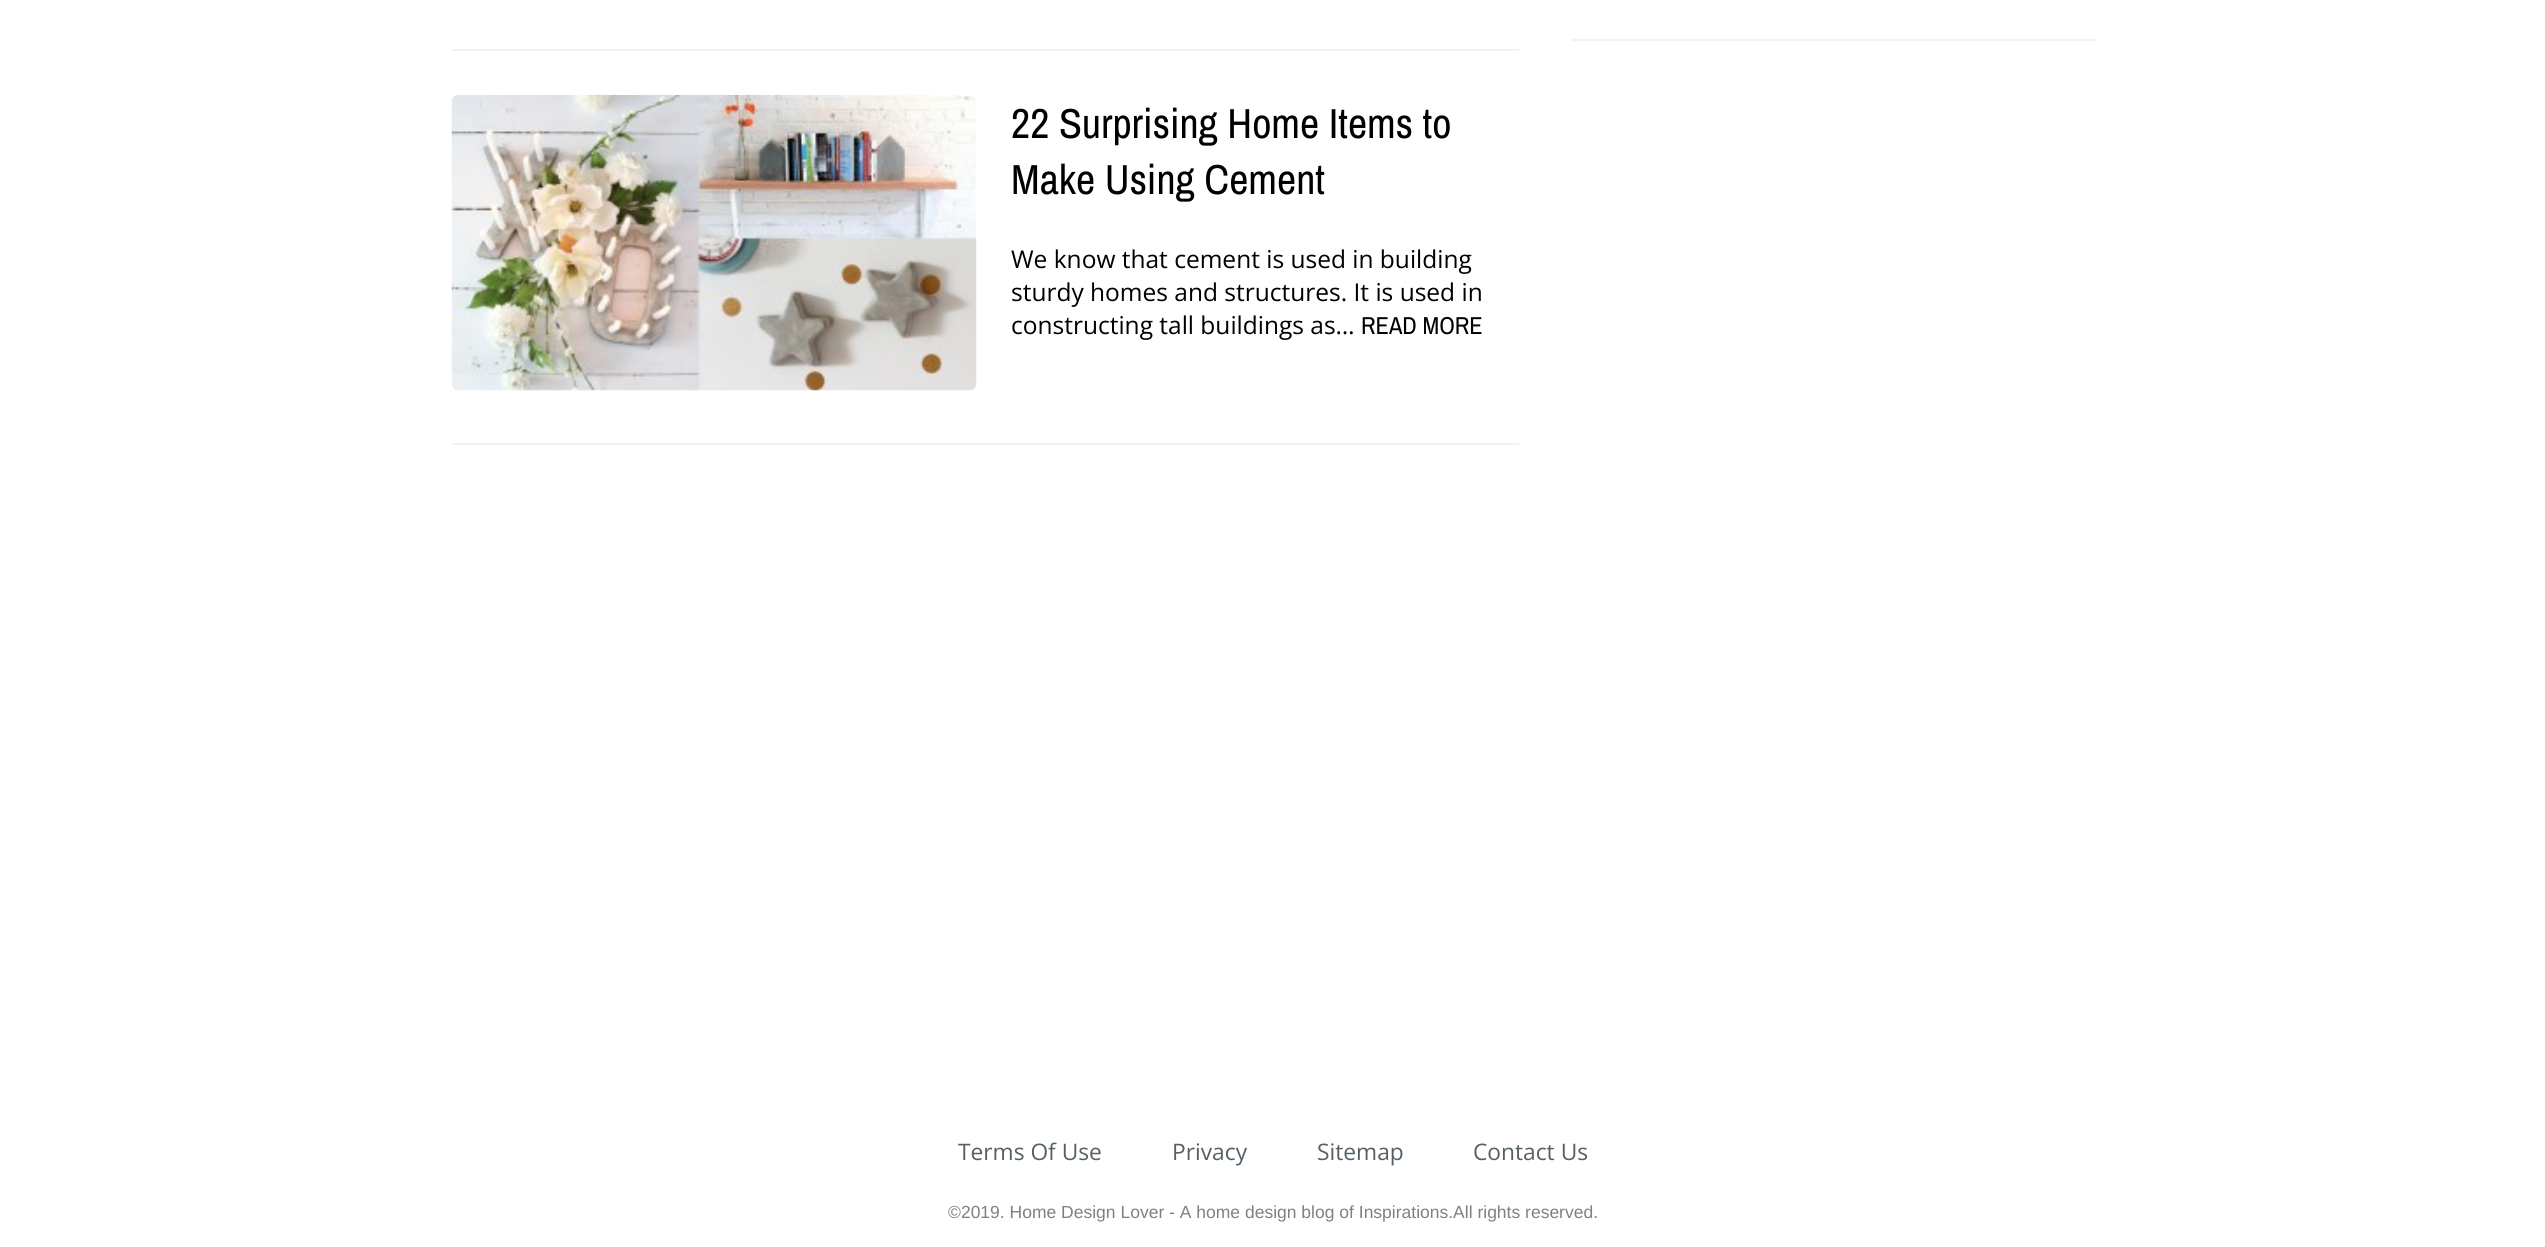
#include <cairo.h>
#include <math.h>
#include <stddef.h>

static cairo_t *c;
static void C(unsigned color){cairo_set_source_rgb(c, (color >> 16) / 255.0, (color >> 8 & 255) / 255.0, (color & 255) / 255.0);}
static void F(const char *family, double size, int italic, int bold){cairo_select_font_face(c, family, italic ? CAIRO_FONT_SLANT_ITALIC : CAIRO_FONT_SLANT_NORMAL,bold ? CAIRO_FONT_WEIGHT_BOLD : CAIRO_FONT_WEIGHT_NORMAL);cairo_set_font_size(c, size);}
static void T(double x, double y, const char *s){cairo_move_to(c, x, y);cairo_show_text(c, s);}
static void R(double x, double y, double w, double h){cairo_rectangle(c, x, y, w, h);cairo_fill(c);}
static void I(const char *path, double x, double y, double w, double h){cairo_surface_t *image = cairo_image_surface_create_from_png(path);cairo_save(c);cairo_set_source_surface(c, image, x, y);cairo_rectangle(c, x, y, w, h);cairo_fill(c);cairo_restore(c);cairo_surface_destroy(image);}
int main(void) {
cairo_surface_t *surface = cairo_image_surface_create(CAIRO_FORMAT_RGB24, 2545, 1247);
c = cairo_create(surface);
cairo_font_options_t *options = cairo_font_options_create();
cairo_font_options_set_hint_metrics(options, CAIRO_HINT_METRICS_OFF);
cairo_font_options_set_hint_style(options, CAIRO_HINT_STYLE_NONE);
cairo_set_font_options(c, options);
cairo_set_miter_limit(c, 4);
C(0xffffff);
cairo_paint(c);
C(0xf1f2f2);
R(1572,39,525,2);
R(452,49,1067,2);
R(452,443,1067,2);
I("1.png",451,94,526,297);
F("Archivo Narrow",42,0,0);
C(0x000000);
T(1011,138,"22 Surprising Home Items to");
T(1011,194,"Make Using Cement");
F("Open Sans",24.5,0,0);
T(1011,268,"We know that cement is used in building");
T(1011,301,"sturdy homes and structures. It is used in");
T(1011,334,"constructing tall buildings as…");
F("Archivo Narrow",24.5,0,0);
T(1361,334,"READ MORE");
F("Open Sans",22.75,0,0);
C(0x556066);
T(958,1160,"Terms Of Use");
T(1172,1160,"Privacy");
T(1317,1160,"Sitemap");
T(1473,1160,"Contact Us");
F("Liberation Sans",17.5,0,0);
C(0x7f8080);
T(948,1218,"©2019. Home Design Lover - A home design blog of Inspirations.All rights reserved.");
cairo_surface_write_to_png(surface, "o.png");
cairo_font_options_destroy(options);
cairo_destroy(c);
cairo_surface_destroy(surface);
return 0;
}
